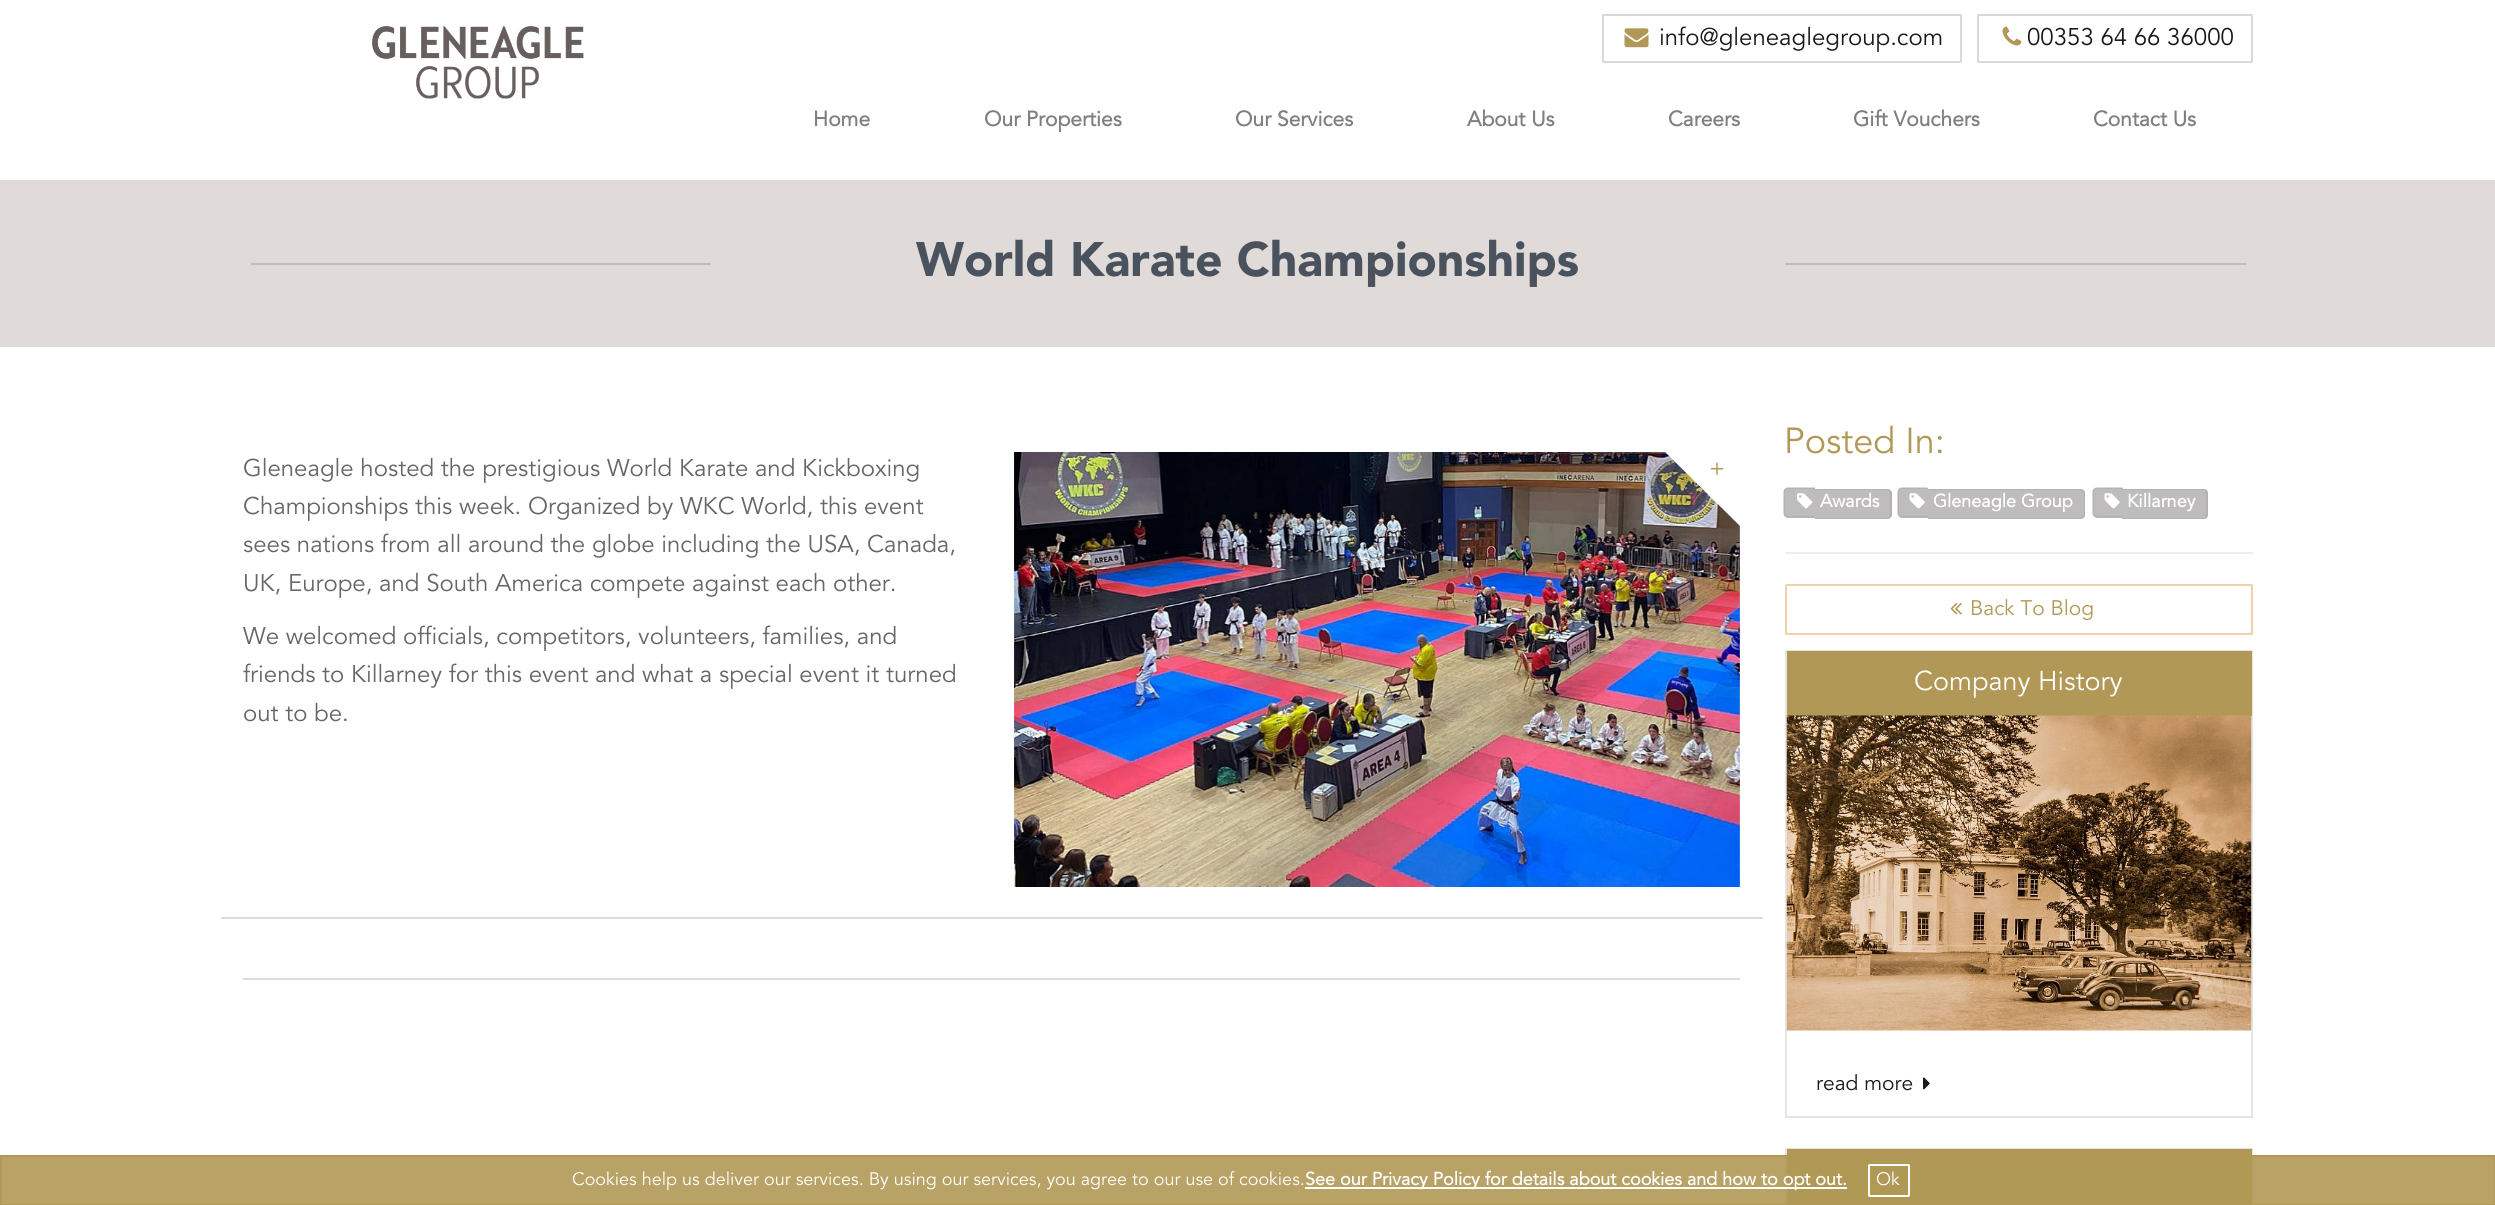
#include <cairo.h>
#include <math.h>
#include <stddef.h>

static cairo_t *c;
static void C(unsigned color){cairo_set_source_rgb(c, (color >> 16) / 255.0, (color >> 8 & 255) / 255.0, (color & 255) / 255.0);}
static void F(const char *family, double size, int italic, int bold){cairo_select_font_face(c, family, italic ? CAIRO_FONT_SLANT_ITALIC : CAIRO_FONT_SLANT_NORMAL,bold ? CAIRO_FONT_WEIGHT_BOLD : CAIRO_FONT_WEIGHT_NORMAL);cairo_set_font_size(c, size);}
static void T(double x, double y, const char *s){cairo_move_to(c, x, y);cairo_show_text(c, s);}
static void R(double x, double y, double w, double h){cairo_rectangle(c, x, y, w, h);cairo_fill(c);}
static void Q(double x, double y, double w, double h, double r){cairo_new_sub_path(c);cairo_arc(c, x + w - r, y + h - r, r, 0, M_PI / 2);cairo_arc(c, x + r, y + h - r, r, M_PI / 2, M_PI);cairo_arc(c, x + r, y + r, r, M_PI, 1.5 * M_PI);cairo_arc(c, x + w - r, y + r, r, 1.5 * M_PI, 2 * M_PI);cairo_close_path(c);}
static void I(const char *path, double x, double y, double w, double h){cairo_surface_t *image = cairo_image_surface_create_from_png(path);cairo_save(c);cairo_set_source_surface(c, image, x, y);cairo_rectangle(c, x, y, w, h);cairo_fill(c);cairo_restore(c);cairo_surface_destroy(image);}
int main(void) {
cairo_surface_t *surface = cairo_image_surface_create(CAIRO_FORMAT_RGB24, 2495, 1205);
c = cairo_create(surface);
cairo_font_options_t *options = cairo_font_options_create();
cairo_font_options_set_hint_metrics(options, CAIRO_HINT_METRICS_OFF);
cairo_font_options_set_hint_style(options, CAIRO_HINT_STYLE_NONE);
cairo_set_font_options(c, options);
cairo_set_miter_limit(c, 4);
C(0xffffff);
cairo_paint(c);
I("1.png",372,26,212,73);
Q(1603,15,358,47,.5);
C(0xd8d8d8);
cairo_stroke(c);
I("2.png",1624,28,25,20);
F("Avenir",24,0,0);
C(0x191919);
T(1659,45,"info@gleneaglegroup.com");
Q(1978,15,274,47,.5);
C(0xd8d8d8);
cairo_stroke(c);
I("3.png",2002,26,20,20);
C(0x191919);
T(2027,45,"00353 64 66 36000");
F("Avenir",21,0,1);
C(0x7f7f7f);
T(813,126,"Home");
T(984,126,"Our Properties");
T(1235,126,"Our Services");
T(1467,126,"About Us");
T(1668,126,"Careers");
T(1853,126,"Gift Vouchers");
T(2093,126,"Contact Us");
C(0xe0dad8);
R(0,180,2495,167);
C(0xbebcbc);
R(251,263,460,2);
F("Avenir Black",48,0,0);
C(0x4a525e);
T(916,276,"World Karate Championships");
C(0xbebcbc);
R(1785,263,461,2);
C(0xe0dad8);
R(221,917,1542,2);
F("Avenir",24,0,0);
C(0x666666);
T(243,476,"Gleneagle hosted the prestigious World Karate and Kickboxing");
T(243,514,"Championships this week. Organized by WKC World, this event");
T(243,552,"sees nations from all around the globe including the USA, Canada,");
T(243,591,"UK, Europe, and South America compete against each other.");
T(243,644,"We welcomed officials, competitors, volunteers, families, and");
T(243,682,"friends to Killarney for this event and what a special event it turned");
T(243,721,"out to be.");
I("4.png",1014,452,726,435);
C(0xffffff);
cairo_new_path(c);
cairo_move_to(c,1665,452);
cairo_line_to(c,1740,452);
cairo_line_to(c,1740,526);
cairo_close_path(c);
cairo_fill(c);
C(0xb19856);
T(1709,476,"+");
C(0xe0dad8);
R(243,978,1497,2);
F("Avenir",36,0,0);
C(0xb19856);
T(1784,453,"Posted In:");
C(0xbebcbc);
cairo_new_path(c);
cairo_move_to(c,1789,488);
cairo_line_to(c,1815,488);
cairo_line_to(c,1815,518);
cairo_line_to(c,1789,518);
cairo_curve_to(c,1786,518,1784,516,1784,513);
cairo_line_to(c,1784,493);
cairo_curve_to(c,1784,490,1786,488,1789,488);
cairo_close_path(c);
cairo_fill(c);
C(0xb3b1b1);
cairo_set_fill_rule(c,CAIRO_FILL_RULE_EVEN_ODD);
cairo_new_path(c);
cairo_move_to(c,1788,487.5);
cairo_line_to(c,1815,487.5);
cairo_line_to(c,1815,517.5);
cairo_line_to(c,1788,517.5);
cairo_curve_to(c,1785.5,517.5,1783.5,515.5,1783.5,513);
cairo_line_to(c,1783.5,492);
cairo_curve_to(c,1783.5,489.5,1785.5,487.5,1788,487.5);
cairo_close_path(c);
cairo_move_to(c,1788,489);
cairo_line_to(c,1815,489);
cairo_line_to(c,1815,516);
cairo_line_to(c,1788,516);
cairo_curve_to(c,1786.5,516,1785,514.5,1785,513);
cairo_line_to(c,1785,492);
cairo_curve_to(c,1785,490.5,1786.5,489,1788,489);
cairo_close_path(c);
cairo_fill(c);
C(0xbebcbc);
cairo_new_path(c);
cairo_move_to(c,1815,489);
cairo_line_to(c,1887,489);
cairo_curve_to(c,1890,489,1892,491,1892,494);
cairo_line_to(c,1892,514);
cairo_curve_to(c,1892,517,1890,519,1887,519);
cairo_line_to(c,1815,519);
cairo_close_path(c);
cairo_fill(c);
C(0xb3b1b1);
cairo_new_path(c);
cairo_move_to(c,1815,489);
cairo_line_to(c,1887,489);
cairo_curve_to(c,1889,489,1892,491,1892,494);
cairo_line_to(c,1892,514);
cairo_curve_to(c,1892,517,1889,519,1887,519);
cairo_line_to(c,1815,519);
cairo_close_path(c);
cairo_move_to(c,1815,490);
cairo_line_to(c,1887,490);
cairo_curve_to(c,1889,490,1890,492,1890,494);
cairo_line_to(c,1890,514);
cairo_curve_to(c,1890,516,1889,518,1887,518);
cairo_line_to(c,1815,518);
cairo_close_path(c);
cairo_fill(c);
I("5.png",1797,493,16,16);
F("Avenir",18,0,1);
C(0xffffff);
T(1820,507,"Awards");
C(0xbebcbc);
cairo_new_path(c);
cairo_move_to(c,1903,488);
cairo_line_to(c,1928,488);
cairo_line_to(c,1928,518);
cairo_line_to(c,1903,518);
cairo_curve_to(c,1900,518,1898,516,1898,513);
cairo_line_to(c,1898,493);
cairo_curve_to(c,1898,490,1900,488,1903,488);
cairo_close_path(c);
cairo_fill(c);
C(0xb3b1b1);
cairo_new_path(c);
cairo_move_to(c,1902,487.5);
cairo_line_to(c,1927.5,487.5);
cairo_line_to(c,1927.5,517.5);
cairo_line_to(c,1902,517.5);
cairo_curve_to(c,1899.5,517.5,1897.5,515.5,1897.5,513);
cairo_line_to(c,1897.5,492);
cairo_curve_to(c,1897.5,489.5,1899.5,487.5,1902,487.5);
cairo_close_path(c);
cairo_move_to(c,1902,489);
cairo_line_to(c,1927.5,489);
cairo_line_to(c,1927.5,516);
cairo_line_to(c,1902,516);
cairo_curve_to(c,1900.5,516,1899,514.5,1899,513);
cairo_line_to(c,1899,492);
cairo_curve_to(c,1899,490.5,1900.5,489,1902,489);
cairo_close_path(c);
cairo_fill(c);
C(0xbebcbc);
cairo_new_path(c);
cairo_move_to(c,1928,489);
cairo_line_to(c,2080,489);
cairo_curve_to(c,2083,489,2085,491,2085,494);
cairo_line_to(c,2085,514);
cairo_curve_to(c,2085,517,2083,519,2080,519);
cairo_line_to(c,1928,519);
cairo_close_path(c);
cairo_fill(c);
C(0xb3b1b1);
cairo_new_path(c);
cairo_move_to(c,1928,489);
cairo_line_to(c,2080,489);
cairo_curve_to(c,2083,489,2085,491,2085,494);
cairo_line_to(c,2085,514);
cairo_curve_to(c,2085,517,2083,519,2080,519);
cairo_line_to(c,1928,519);
cairo_close_path(c);
cairo_move_to(c,1928,490);
cairo_line_to(c,2080,490);
cairo_curve_to(c,2082,490,2084,492,2084,494);
cairo_line_to(c,2084,514);
cairo_curve_to(c,2084,516,2082,518,2080,518);
cairo_line_to(c,1928,518);
cairo_close_path(c);
cairo_fill(c);
I("6.png",1909,493,16,16);
C(0xffffff);
T(1933,507,"Gleneagle Group");
C(0xbebcbc);
cairo_new_path(c);
cairo_move_to(c,2098,488);
cairo_line_to(c,2123,488);
cairo_line_to(c,2123,518);
cairo_line_to(c,2098,518);
cairo_curve_to(c,2095,518,2093,516,2093,513);
cairo_line_to(c,2093,493);
cairo_curve_to(c,2093,490,2095,488,2098,488);
cairo_close_path(c);
cairo_fill(c);
C(0xb3b1b1);
cairo_new_path(c);
cairo_move_to(c,2097,487.5);
cairo_line_to(c,2122.5,487.5);
cairo_line_to(c,2122.5,517.5);
cairo_line_to(c,2097,517.5);
cairo_curve_to(c,2094.5,517.5,2092.5,515.5,2092.5,513);
cairo_line_to(c,2092.5,492);
cairo_curve_to(c,2092.5,489.5,2094.5,487.5,2097,487.5);
cairo_close_path(c);
cairo_move_to(c,2097,489);
cairo_line_to(c,2122.5,489);
cairo_line_to(c,2122.5,516);
cairo_line_to(c,2097,516);
cairo_curve_to(c,2095.5,516,2094,514.5,2094,513);
cairo_line_to(c,2094,492);
cairo_curve_to(c,2094,490.5,2095.5,489,2097,489);
cairo_close_path(c);
cairo_fill(c);
C(0xbebcbc);
cairo_new_path(c);
cairo_move_to(c,2123,489);
cairo_line_to(c,2203,489);
cairo_curve_to(c,2206,489,2208,491,2208,494);
cairo_line_to(c,2208,514);
cairo_curve_to(c,2208,517,2206,519,2203,519);
cairo_line_to(c,2123,519);
cairo_close_path(c);
cairo_fill(c);
C(0xb3b1b1);
cairo_new_path(c);
cairo_move_to(c,2122,489);
cairo_line_to(c,2204,489);
cairo_curve_to(c,2206,489,2208,491,2208,494);
cairo_line_to(c,2208,514);
cairo_curve_to(c,2208,517,2206,519,2204,519);
cairo_line_to(c,2122,519);
cairo_close_path(c);
cairo_move_to(c,2122,490);
cairo_line_to(c,2204,490);
cairo_curve_to(c,2205,490,2206,492,2206,494);
cairo_line_to(c,2206,514);
cairo_curve_to(c,2206,516,2205,518,2204,518);
cairo_line_to(c,2122,518);
cairo_close_path(c);
cairo_fill(c);
I("6.png",2104,493,16,16);
C(0xffffff);
T(2127,507,"Killarney");
C(0xeeeeee);
R(1785,552,468,2);
Q(1786,585,466,49,.5);
C(0xf2d1a6);
cairo_stroke(c);
I("7.png",1950,602,12,13);
F("Avenir",21,0,0);
C(0xb19856);
T(1970,615,"Back To Blog");
cairo_rectangle(c,1786,651,466,466);
C(0xe5e5e5);
cairo_stroke(c);
C(0xb19856);
R(1787,651,465,65);
F("Avenir",27,0,0);
C(0xffffff);
T(1914,690,"Company History");
I("8.png",1786,715,466,316);
F("Avenir",21,0,0);
C(0x191919);
T(1816,1090,"read more");
I("9.png",1923,1077,7,13);
cairo_rectangle(c,1786,1149,466,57);
C(0xe5e5e5);
cairo_stroke(c);
C(0xb19856);
R(1787,1149,465,55);
cairo_set_source_rgba(c,0.694,0.596,0.337,0.9);
cairo_rectangle(c,1,1156,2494,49);
cairo_fill_preserve(c);
C(0xb19856);
cairo_stroke(c);
F("Avenir",18,0,0);
C(0xffffff);
T(572,1185,"Cookies help us deliver our services. By using our services, you agree to our use of cookies.");
R(1305,1187,542,2);
F("Avenir",18,0,1);
T(1305,1185,"See our Privacy Policy for details about cookies and how to opt out.");
Q(1869,1165,40,31,.5);
cairo_stroke(c);
F("Avenir",18,0,0);
T(1876,1185,"Ok");
cairo_surface_write_to_png(surface, "o.png");
cairo_font_options_destroy(options);
cairo_destroy(c);
cairo_surface_destroy(surface);
return 0;
}
